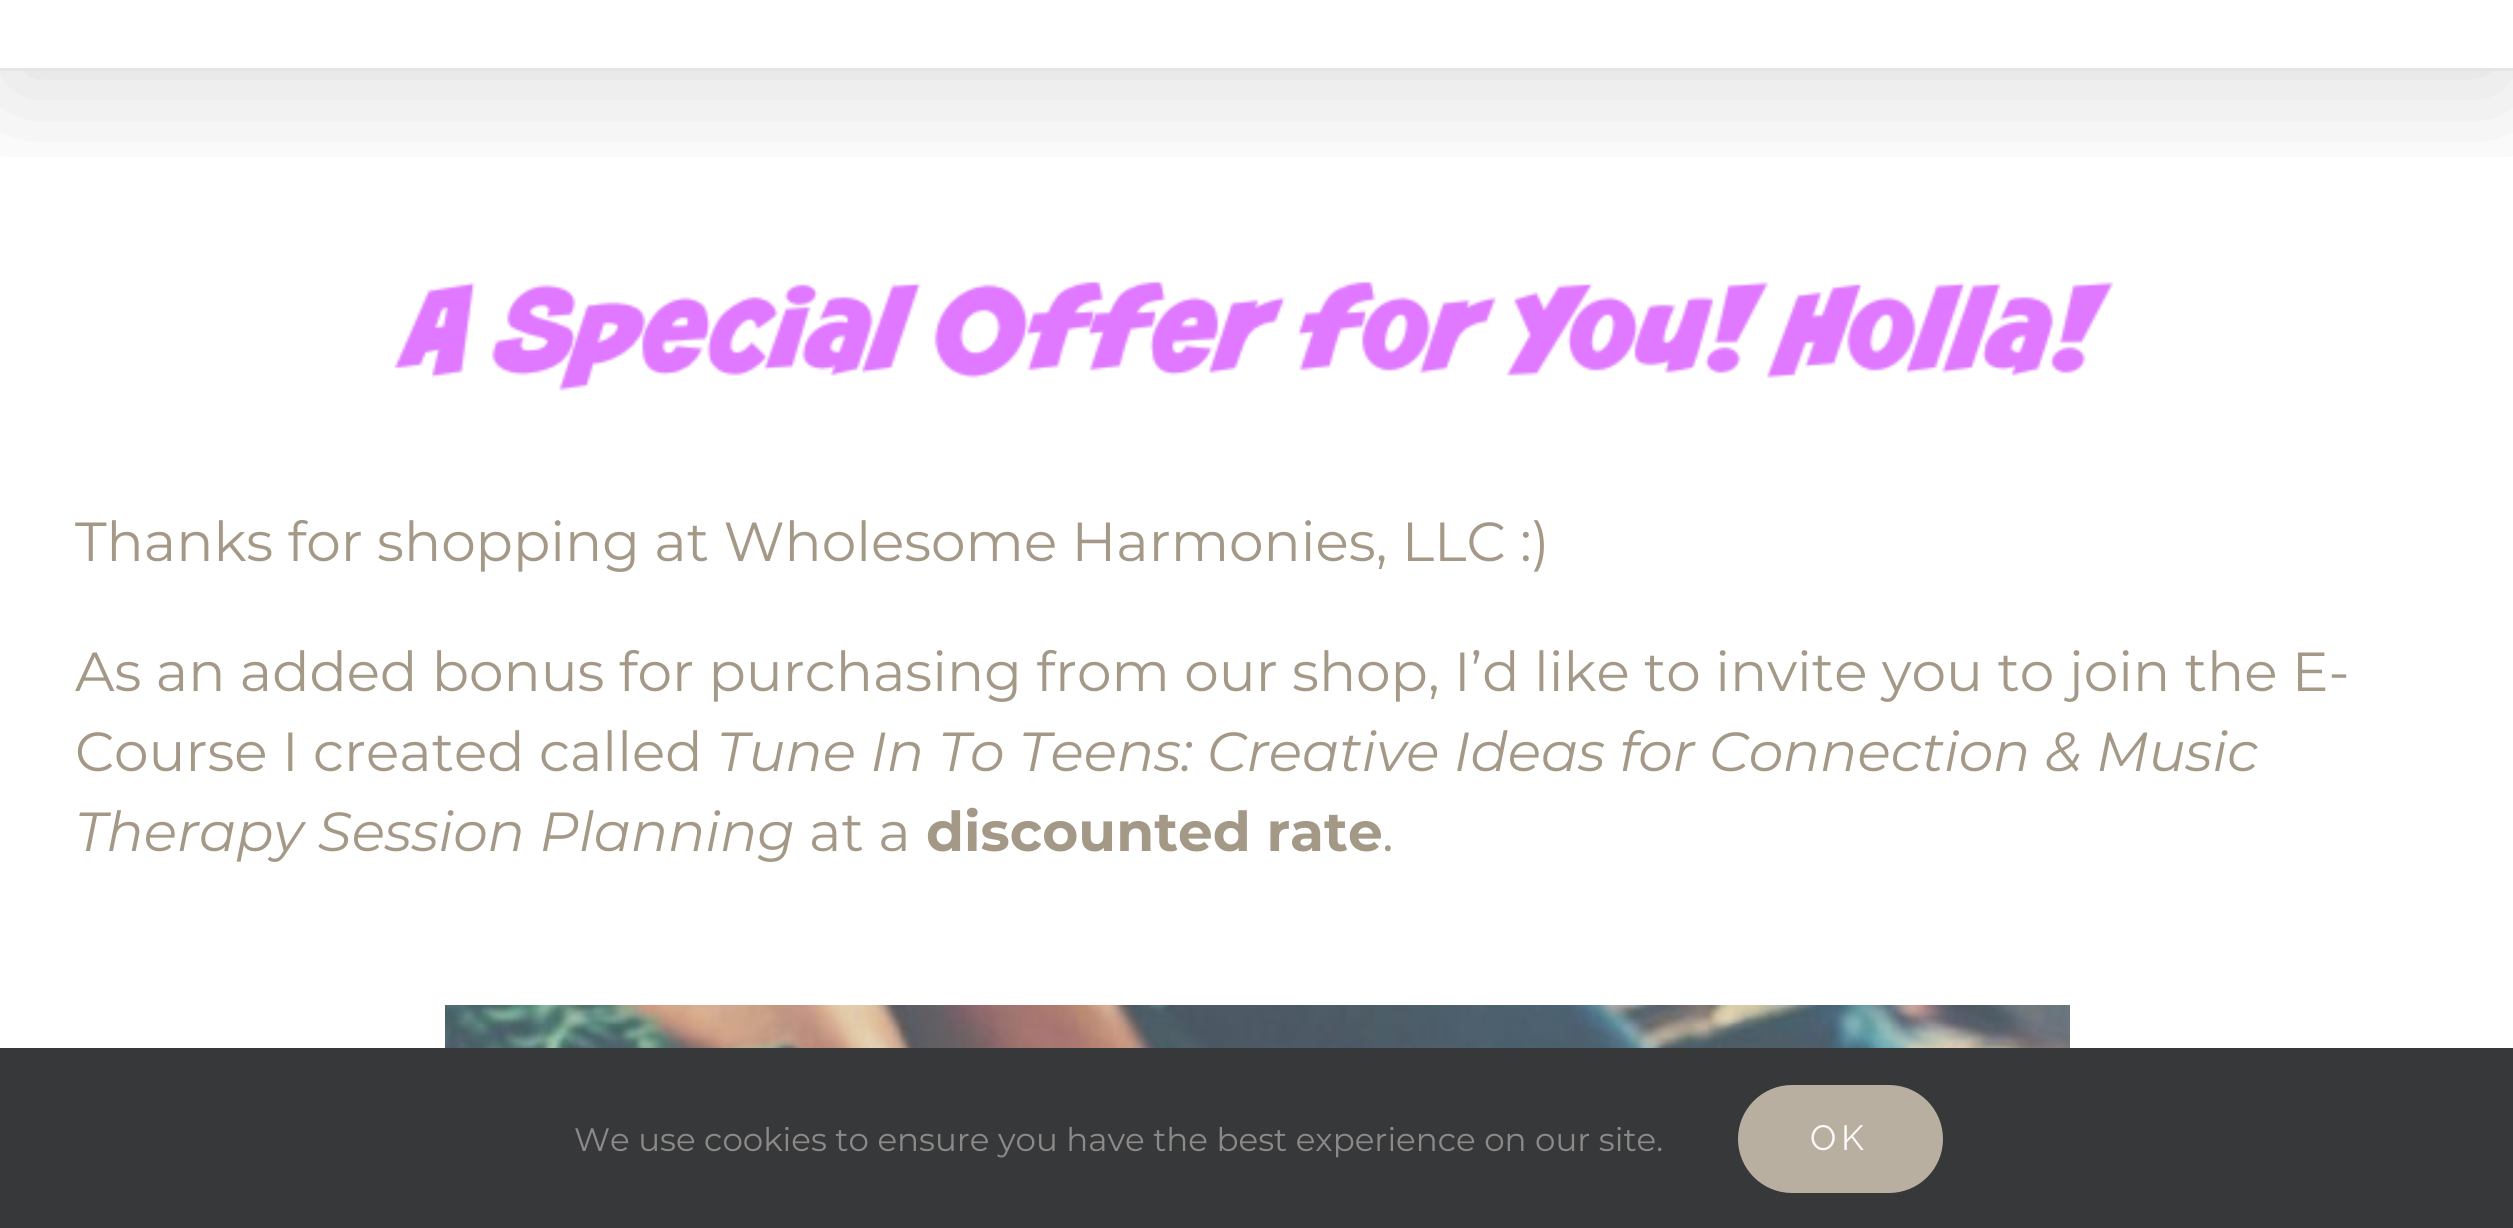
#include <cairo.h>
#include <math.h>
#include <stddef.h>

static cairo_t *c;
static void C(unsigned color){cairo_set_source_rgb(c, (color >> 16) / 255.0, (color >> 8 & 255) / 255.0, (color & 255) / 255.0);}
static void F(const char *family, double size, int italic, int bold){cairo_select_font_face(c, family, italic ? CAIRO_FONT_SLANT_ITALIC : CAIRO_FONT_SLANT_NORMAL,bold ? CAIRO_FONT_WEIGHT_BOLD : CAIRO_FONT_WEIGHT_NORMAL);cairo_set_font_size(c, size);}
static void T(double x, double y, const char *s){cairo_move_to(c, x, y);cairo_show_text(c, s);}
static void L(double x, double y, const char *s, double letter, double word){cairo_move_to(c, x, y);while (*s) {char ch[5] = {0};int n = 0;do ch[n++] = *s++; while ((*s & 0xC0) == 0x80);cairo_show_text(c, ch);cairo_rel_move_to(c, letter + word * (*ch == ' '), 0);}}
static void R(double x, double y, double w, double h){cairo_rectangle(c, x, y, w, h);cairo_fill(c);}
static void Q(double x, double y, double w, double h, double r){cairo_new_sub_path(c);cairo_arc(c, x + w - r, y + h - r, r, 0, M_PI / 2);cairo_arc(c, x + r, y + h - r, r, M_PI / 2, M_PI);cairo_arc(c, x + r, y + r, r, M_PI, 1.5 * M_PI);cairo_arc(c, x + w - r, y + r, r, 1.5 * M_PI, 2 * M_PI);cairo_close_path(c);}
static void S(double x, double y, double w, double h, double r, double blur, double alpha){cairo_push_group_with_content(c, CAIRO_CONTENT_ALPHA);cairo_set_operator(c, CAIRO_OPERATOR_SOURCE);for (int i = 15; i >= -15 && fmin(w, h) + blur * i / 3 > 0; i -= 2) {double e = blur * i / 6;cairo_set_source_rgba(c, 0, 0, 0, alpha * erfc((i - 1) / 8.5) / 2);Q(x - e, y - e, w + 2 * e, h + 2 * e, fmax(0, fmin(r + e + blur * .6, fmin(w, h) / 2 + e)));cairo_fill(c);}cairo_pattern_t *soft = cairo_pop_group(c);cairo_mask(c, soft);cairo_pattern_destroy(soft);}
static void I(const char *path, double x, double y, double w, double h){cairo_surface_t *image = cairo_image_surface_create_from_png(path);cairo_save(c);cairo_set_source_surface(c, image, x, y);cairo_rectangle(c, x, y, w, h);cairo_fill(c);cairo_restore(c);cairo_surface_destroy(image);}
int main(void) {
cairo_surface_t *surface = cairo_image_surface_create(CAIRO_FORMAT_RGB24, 2513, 1228);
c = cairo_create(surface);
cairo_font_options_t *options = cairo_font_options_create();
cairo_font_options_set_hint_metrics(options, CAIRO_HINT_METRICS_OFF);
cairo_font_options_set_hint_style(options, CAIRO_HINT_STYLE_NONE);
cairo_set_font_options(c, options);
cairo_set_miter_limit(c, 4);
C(0xffffff);
cairo_paint(c);
cairo_save(c);
cairo_rectangle(c,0,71,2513,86);
cairo_clip(c);
C(0x000000);
S(5,-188,2505,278,0,62.5,.14);
cairo_restore(c);
C(0xe5e5e5);
R(0,68,2513,3);
I("1.png",394,281,1720,110);
F("Montserrat",55,0,0);
C(0xa49887);
T(75,561,"Thanks for shopping at Wholesome Harmonies, LLC :)");
T(75,691,"As an added bonus for purchasing from our shop, I’d like to invite you to join the E-");
T(75,771,"Course I created called");
F("Montserrat",55,1,0);
T(717,771,"Tune In To Teens: Creative Ideas for Connection & Music");
T(75,851,"Therapy Session Planning");
F("Montserrat",55,0,0);
T(809,851,"at a");
F("Montserrat",55,0,1);
T(926,851,"discounted rate");
F("Montserrat",55,0,0);
T(1382,851,".");
I("2.png",445,1005,1625,43);
C(0x363839);
R(0,1048,2513,180);
F("Montserrat",32.5,0,0);
C(0x8c8989);
T(574,1151,"We use cookies to ensure you have the best experience on our site.");
C(0xb9afa1);
Q(1738,1085,205,108,54);
cairo_fill(c);
F("Raleway",35,0,0);
C(0xfcfbfa);
L(1810,1150,"OK",5,0);
cairo_surface_write_to_png(surface, "o.png");
cairo_font_options_destroy(options);
cairo_destroy(c);
cairo_surface_destroy(surface);
return 0;
}
